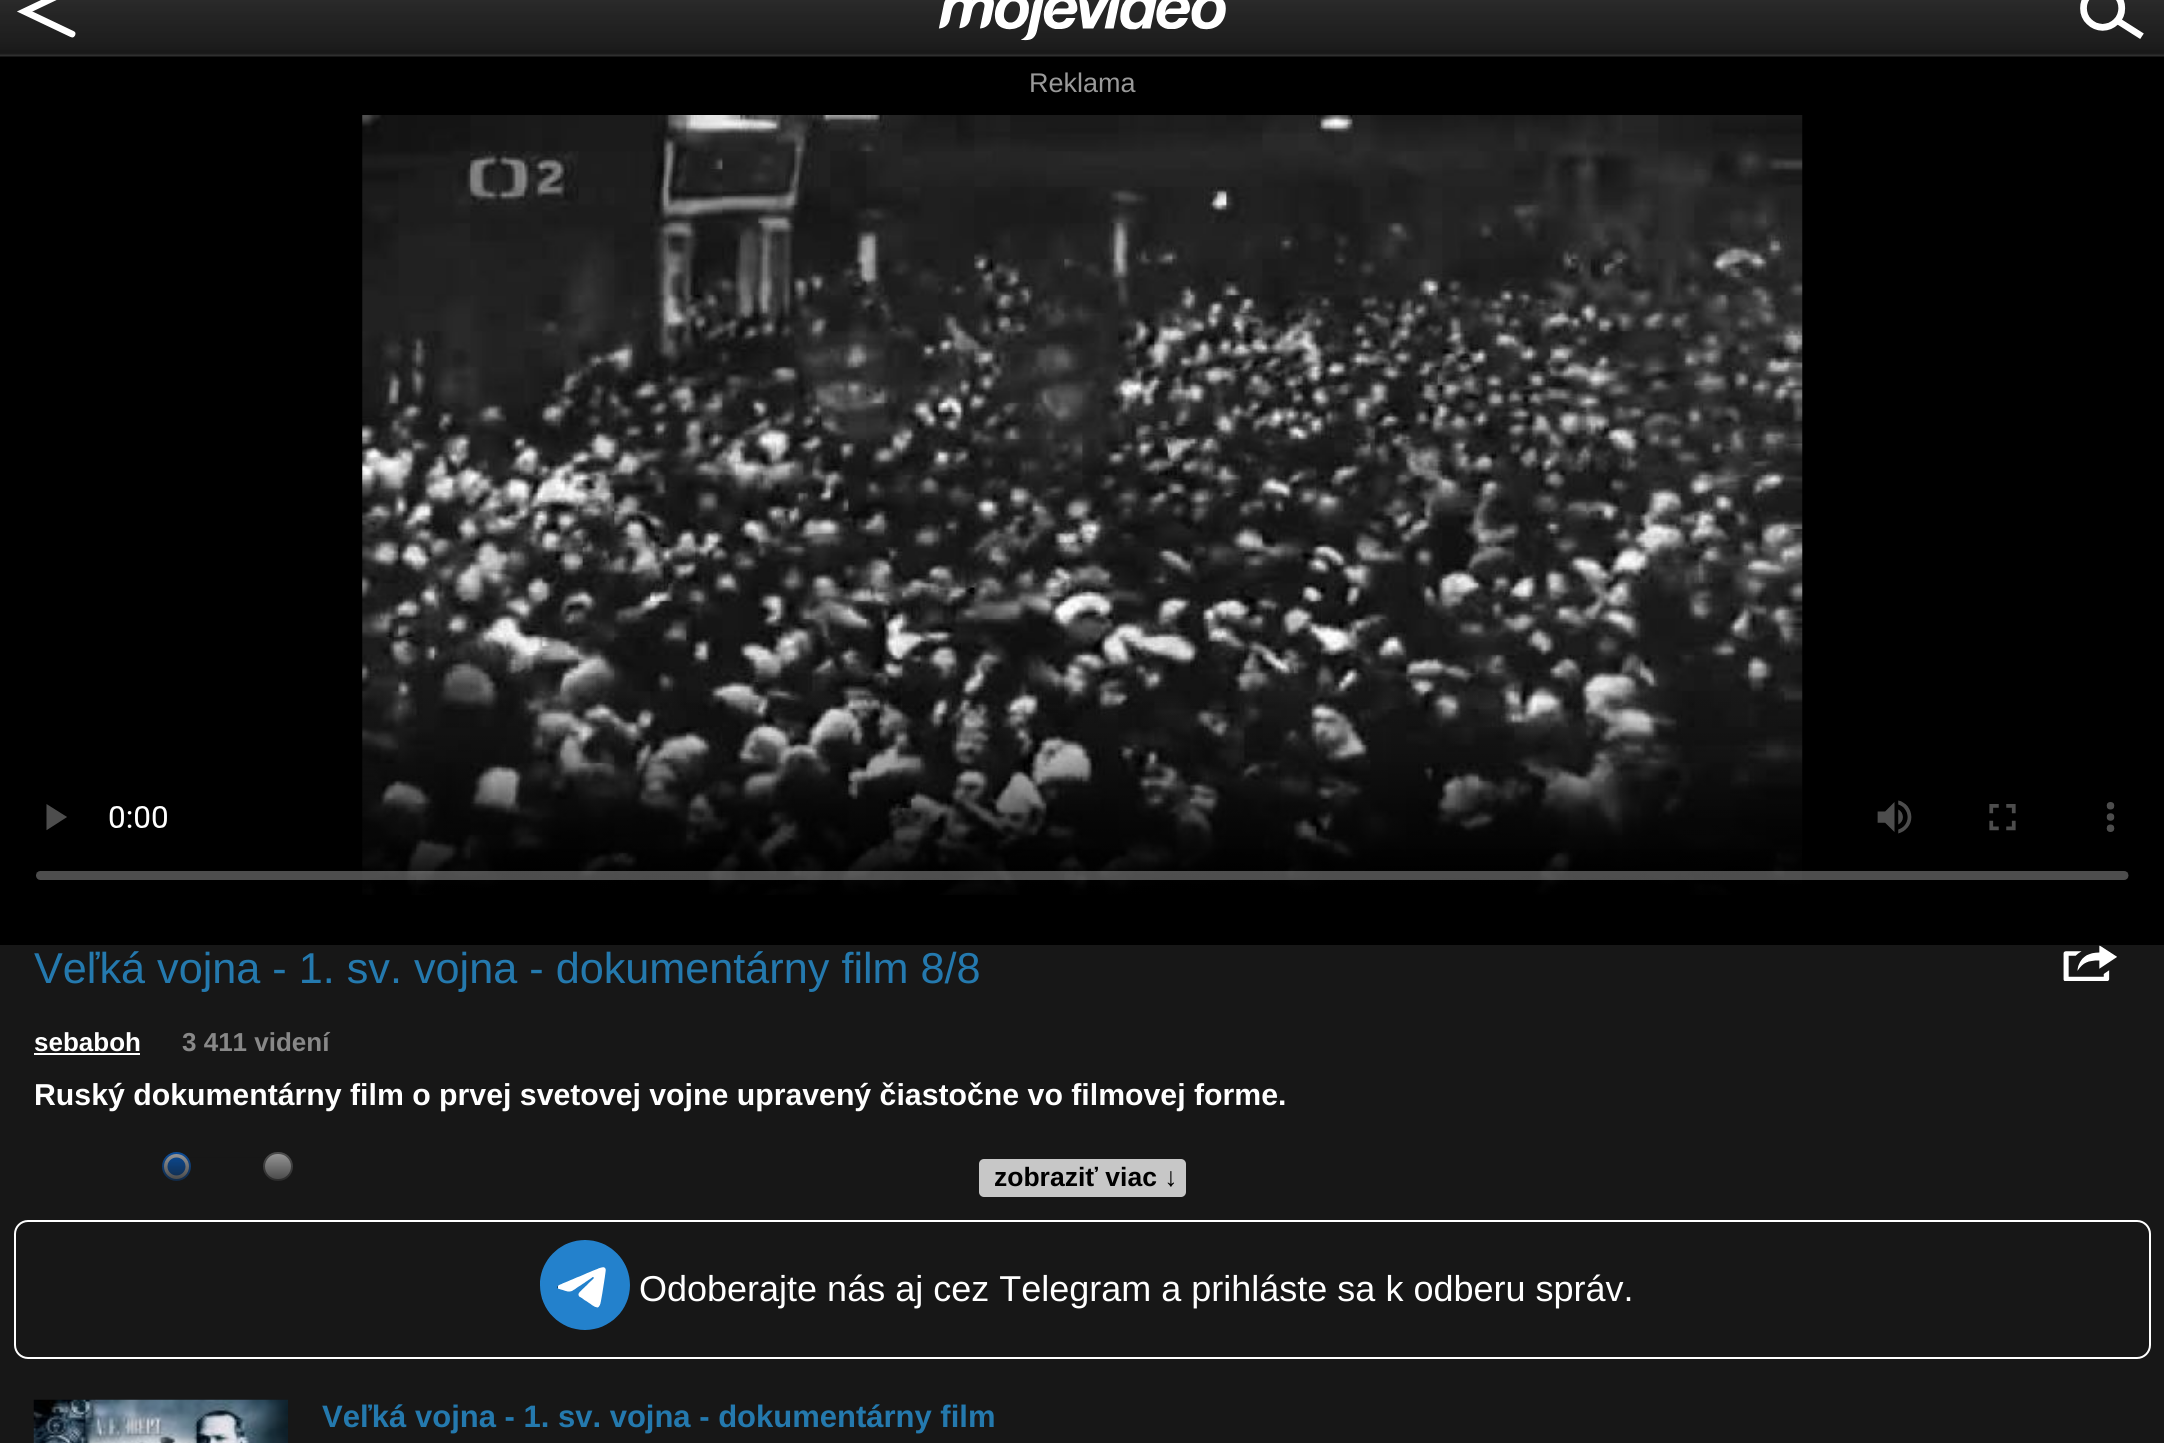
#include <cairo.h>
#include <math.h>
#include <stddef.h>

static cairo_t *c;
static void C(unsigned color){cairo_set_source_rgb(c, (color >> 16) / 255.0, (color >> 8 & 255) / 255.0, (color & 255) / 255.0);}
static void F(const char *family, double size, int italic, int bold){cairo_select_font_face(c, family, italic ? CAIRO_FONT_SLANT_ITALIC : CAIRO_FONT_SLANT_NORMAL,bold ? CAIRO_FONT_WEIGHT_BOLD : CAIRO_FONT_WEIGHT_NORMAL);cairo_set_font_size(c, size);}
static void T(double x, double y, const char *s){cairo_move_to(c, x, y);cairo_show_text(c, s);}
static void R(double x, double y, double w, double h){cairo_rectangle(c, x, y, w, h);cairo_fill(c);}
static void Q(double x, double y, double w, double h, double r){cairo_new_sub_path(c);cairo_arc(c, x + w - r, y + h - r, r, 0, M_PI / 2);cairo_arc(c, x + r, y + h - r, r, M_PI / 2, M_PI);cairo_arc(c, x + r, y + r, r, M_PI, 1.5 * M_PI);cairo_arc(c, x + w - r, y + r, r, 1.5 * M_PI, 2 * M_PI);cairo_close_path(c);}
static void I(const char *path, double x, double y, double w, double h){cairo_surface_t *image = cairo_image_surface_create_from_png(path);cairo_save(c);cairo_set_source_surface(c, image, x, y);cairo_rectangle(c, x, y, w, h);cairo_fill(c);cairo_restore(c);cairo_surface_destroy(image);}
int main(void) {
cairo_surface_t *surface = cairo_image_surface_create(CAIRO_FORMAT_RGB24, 2164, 1443);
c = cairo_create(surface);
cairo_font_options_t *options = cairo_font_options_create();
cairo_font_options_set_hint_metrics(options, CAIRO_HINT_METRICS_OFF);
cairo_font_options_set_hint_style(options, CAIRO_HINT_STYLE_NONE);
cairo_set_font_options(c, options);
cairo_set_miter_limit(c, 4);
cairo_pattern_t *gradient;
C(0x000000);
cairo_paint(c);
I("1.png",0,0,2164,57);
I("2.png",17,0,59,38);
I("3.png",938,0,288,41);
I("4.png",2080,0,64,39);
F("Liberation Sans",27,0,0);
C(0x999999);
T(1029,92,"Reklama");
I("5.png",36,115,2093,780);
C(0x171717);
R(0,945,2164,498);
F("Liberation Sans",43.2,0,0);
C(0x2479ae);
T(34,983,"Veľká vojna - 1. sv. vojna - dokumentárny film 8/8");
I("6.png",2063,945,54,36);
F("Liberation Sans",26,0,1);
C(0xffffff);
T(34,1051,"sebaboh");
R(34,1053,106,2);
C(0x888888);
T(182,1051,"3 411 videní");
F("Liberation Sans",30.25,0,1);
C(0xffffff);
T(34,1105,"Ruský dokumentárny film o prvej svetovej vojne upravený čiastočne vo filmovej forme.");
cairo_new_path(c);
cairo_arc(c,176.5,1166.5,13.5,0,2 * M_PI);
cairo_fill_preserve(c);
C(0x0075ff);
cairo_stroke(c);
cairo_arc(c,176.5,1166.5,9,0,2 * M_PI);
cairo_fill(c);
C(0xffffff);
Q(264,1153,28,27,13.5);
cairo_fill_preserve(c);
C(0x767676);
cairo_stroke(c);
gradient = cairo_pattern_create_linear(1082,1118,1082,1197);
cairo_pattern_add_color_stop_rgba(gradient,0,0.09,0.09,0.09,0);
cairo_pattern_add_color_stop_rgba(gradient,1,0.09,0.09,0.09,1);
cairo_set_source(c,gradient);
cairo_pattern_destroy(gradient);
R(162,1152,131,29);
C(0xc7c7c7);
Q(979,1159,207,38,5);
cairo_fill(c);
F("Liberation Sans",26.5,0,1);
C(0x000000);
T(994,1186,"zobraziť viac ↓");
Q(15,1221,2135,137,13);
C(0xffffff);
cairo_stroke(c);
I("7.png",540,1240,90,90);
F("Liberation Sans",36,0,0);
T(639,1301,"Odoberajte nás aj cez Telegram a prihláste sa k odberu správ.");
I("8.png",33,1399,255,44);
F("Liberation Sans",31,0,1);
C(0x2479ae);
T(322,1427,"Veľká vojna - 1. sv. vojna - dokumentárny film");
cairo_surface_write_to_png(surface, "o.png");
cairo_font_options_destroy(options);
cairo_destroy(c);
cairo_surface_destroy(surface);
return 0;
}
